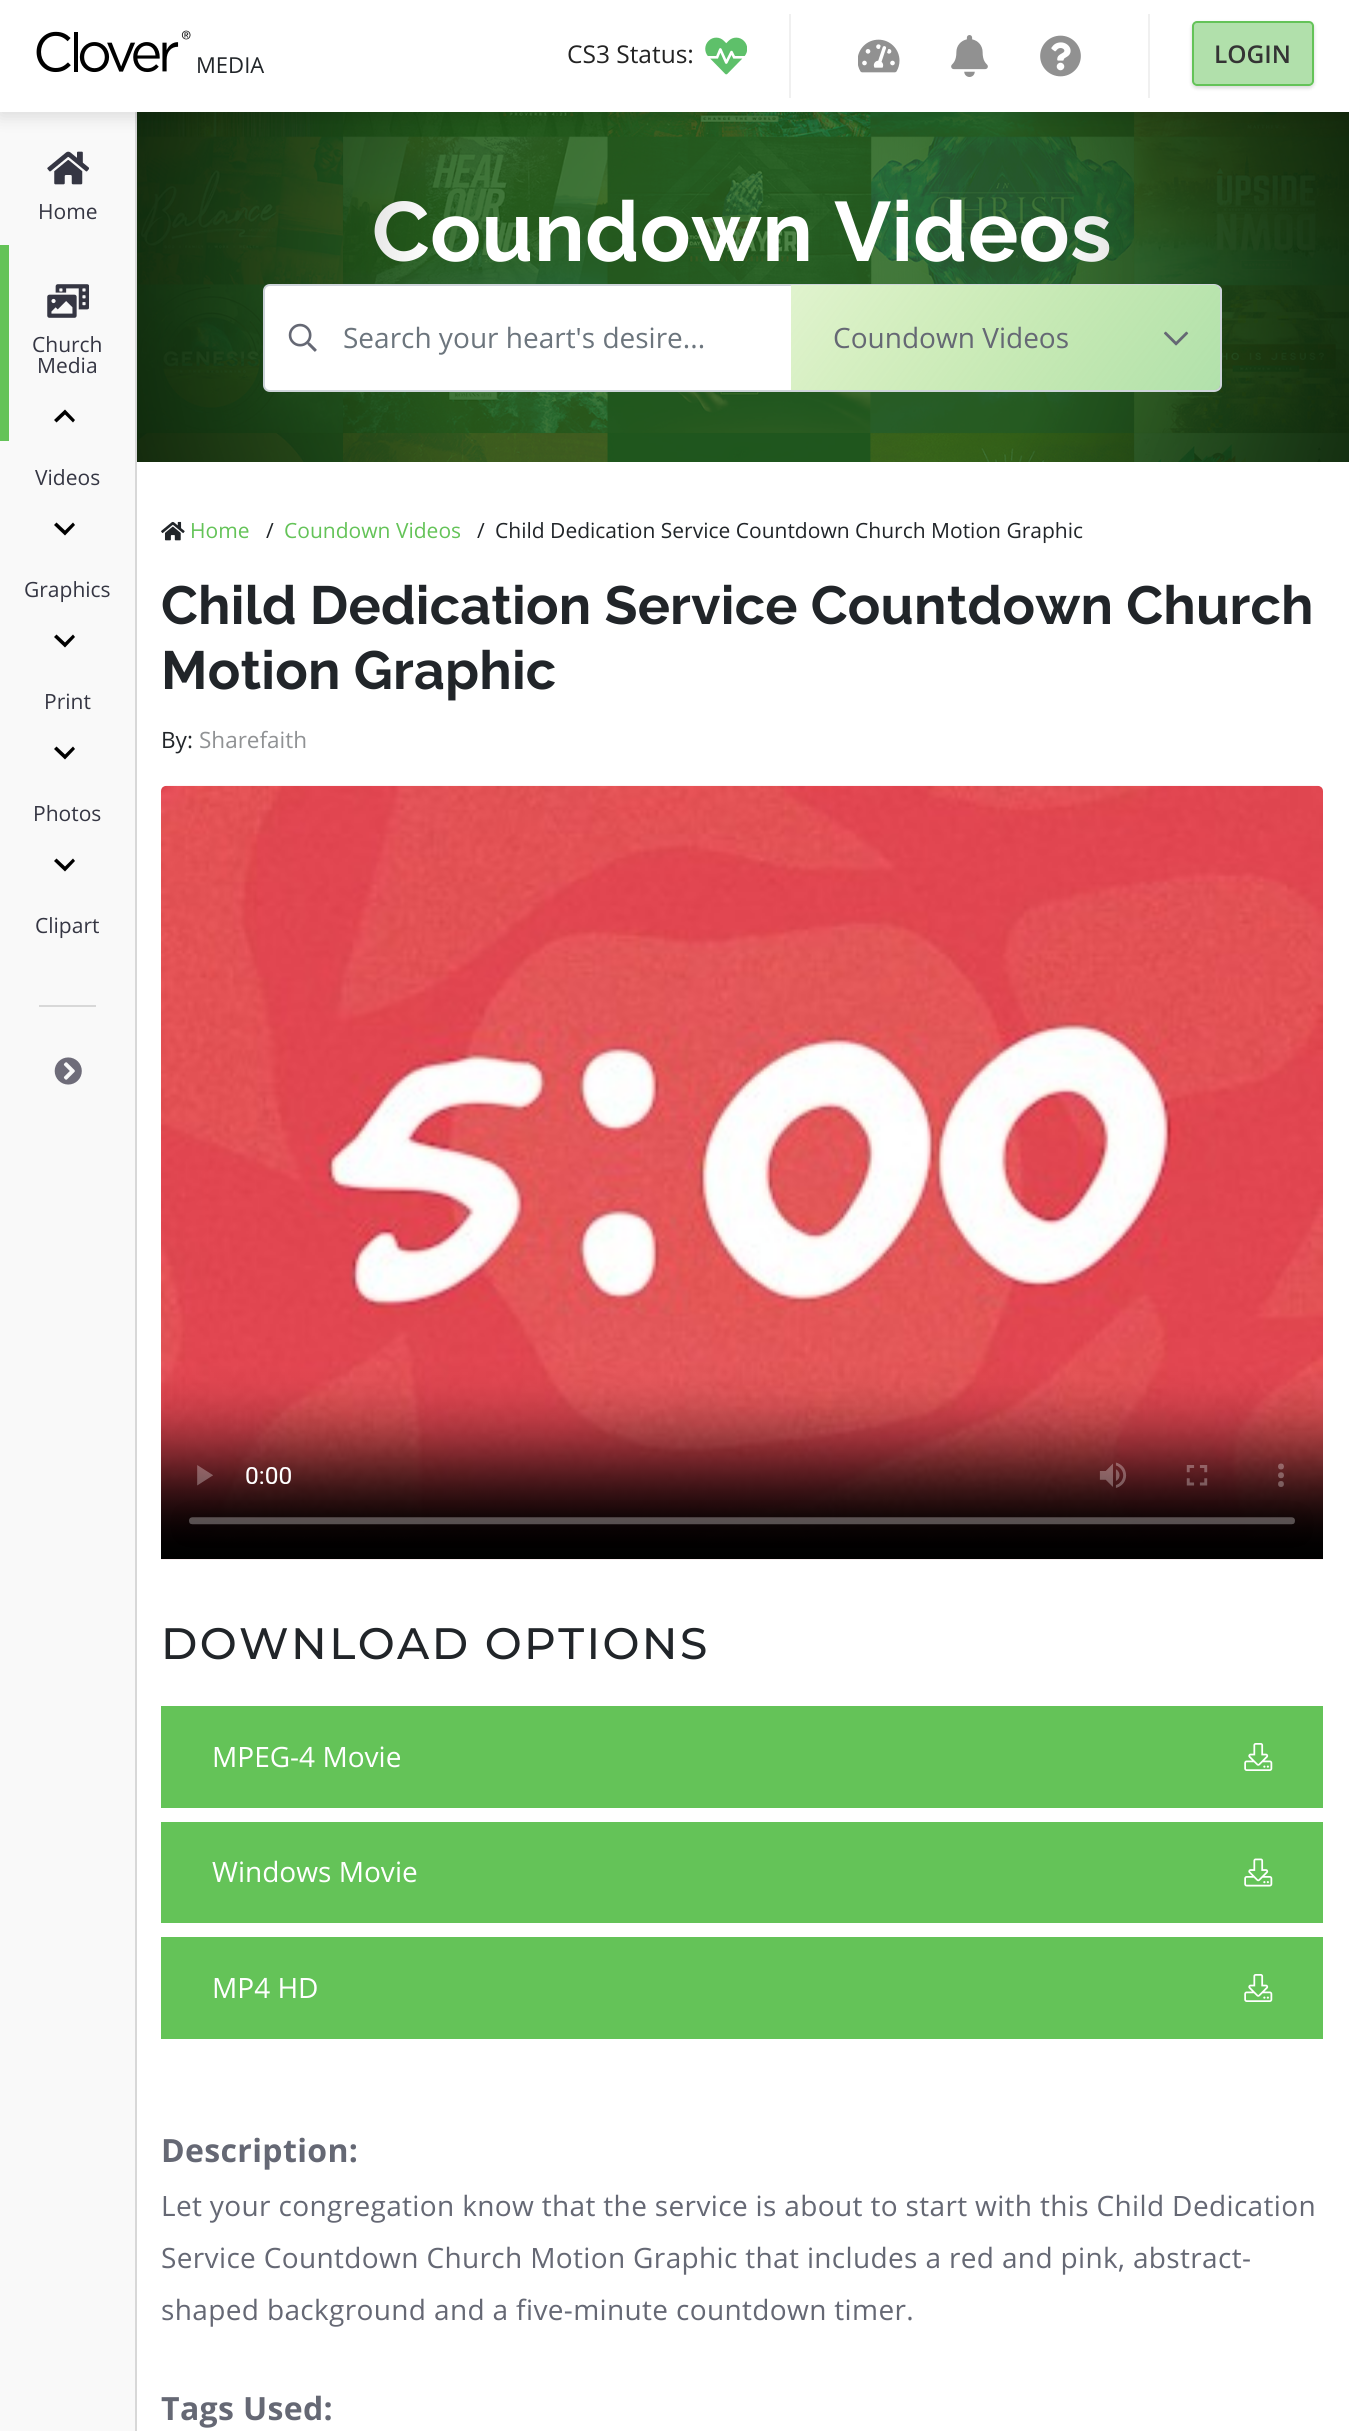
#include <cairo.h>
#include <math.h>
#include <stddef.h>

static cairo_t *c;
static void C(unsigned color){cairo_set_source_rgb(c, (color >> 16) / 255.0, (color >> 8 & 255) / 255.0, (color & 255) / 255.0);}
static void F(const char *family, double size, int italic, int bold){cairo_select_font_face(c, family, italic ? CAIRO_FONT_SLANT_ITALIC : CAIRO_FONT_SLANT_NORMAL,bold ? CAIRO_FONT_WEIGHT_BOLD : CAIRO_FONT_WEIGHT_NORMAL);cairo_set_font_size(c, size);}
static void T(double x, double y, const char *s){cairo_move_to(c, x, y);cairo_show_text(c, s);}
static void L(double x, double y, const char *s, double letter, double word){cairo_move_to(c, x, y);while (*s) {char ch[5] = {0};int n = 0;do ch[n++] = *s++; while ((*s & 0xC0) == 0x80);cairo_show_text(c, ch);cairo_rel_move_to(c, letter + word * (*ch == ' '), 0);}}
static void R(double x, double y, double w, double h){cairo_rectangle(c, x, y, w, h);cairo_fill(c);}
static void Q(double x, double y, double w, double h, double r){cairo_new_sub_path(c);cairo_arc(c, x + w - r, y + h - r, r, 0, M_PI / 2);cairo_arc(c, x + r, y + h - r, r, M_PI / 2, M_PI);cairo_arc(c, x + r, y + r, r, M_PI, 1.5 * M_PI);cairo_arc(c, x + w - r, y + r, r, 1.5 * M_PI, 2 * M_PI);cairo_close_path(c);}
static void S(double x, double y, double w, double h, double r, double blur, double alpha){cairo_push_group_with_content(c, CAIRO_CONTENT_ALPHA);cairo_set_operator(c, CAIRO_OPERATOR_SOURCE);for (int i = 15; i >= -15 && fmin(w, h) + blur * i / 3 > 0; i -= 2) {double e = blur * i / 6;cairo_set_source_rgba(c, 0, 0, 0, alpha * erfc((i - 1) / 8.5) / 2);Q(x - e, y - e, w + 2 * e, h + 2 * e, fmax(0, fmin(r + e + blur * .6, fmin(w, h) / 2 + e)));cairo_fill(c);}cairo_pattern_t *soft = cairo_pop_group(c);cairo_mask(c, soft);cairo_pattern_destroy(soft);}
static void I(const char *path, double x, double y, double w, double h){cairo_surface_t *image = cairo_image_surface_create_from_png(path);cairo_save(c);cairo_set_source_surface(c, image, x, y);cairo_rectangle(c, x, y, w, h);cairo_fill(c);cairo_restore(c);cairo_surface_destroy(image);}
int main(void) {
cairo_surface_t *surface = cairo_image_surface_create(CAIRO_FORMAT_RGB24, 1349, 2431);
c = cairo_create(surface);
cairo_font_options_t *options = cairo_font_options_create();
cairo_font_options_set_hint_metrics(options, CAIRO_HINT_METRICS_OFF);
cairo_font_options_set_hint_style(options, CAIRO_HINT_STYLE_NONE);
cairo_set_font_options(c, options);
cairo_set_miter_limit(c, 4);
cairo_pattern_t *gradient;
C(0xffffff);
cairo_paint(c);
C(0xf9f9f9);
R(0,112,135,2319);
C(0xd8d8d8);
R(135,112,2,2319);
I("9.png",137,112,1212,350);
F("Raleway",84,0,1);
C(0xffffff);
L(372,261,"Coundown Videos",.5,0);
gradient = cairo_pattern_create_radial(742,287,0,742,287,948);
cairo_pattern_add_color_stop_rgba(gradient,.33,0,0,0,0);
cairo_pattern_add_color_stop_rgba(gradient,1,0,0,0,1);
cairo_set_source(c,gradient);
cairo_pattern_destroy(gradient);
R(137,112,1212,350);
C(0x000000);
S(0,4,1349,112,0,9,.13);
C(0xffffff);
R(0,0,1349,112);
I("1.png",36,30,155,43);
F("Open Sans",22,0,0);
C(0x212529);
T(196,73,"MEDIA");
F("Open Sans",24.5,0,0);
C(0x232323);
T(567,63,"CS3 Status:");
I("2.png",705,37,42,38);
C(0xf0f0f0);
R(789,14,2,84);
I("3.png",858,39,42,34);
I("4.png",951,35,37,42);
I("5.png",1040,35,41,42);
R(1148,14,2,84);
cairo_save(c);
cairo_set_fill_rule(c,CAIRO_FILL_RULE_EVEN_ODD);
cairo_new_path(c);
cairo_move_to(c,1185,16);
cairo_line_to(c,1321,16);
cairo_line_to(c,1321,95);
cairo_line_to(c,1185,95);
cairo_close_path(c);
cairo_move_to(c,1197,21);
cairo_line_to(c,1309,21);
cairo_curve_to(c,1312,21,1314,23,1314,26);
cairo_line_to(c,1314,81);
cairo_curve_to(c,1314,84,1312,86,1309,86);
cairo_line_to(c,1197,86);
cairo_curve_to(c,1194,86,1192,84,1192,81);
cairo_line_to(c,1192,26);
cairo_curve_to(c,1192,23,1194,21,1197,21);
cairo_close_path(c);
cairo_clip(c);
C(0x000000);
S(1192,23,122,65,5,2,.16);
cairo_restore(c);
cairo_set_source_rgba(c,0.392,0.765,0.345,0.5);
Q(1193,22,120,63,4);
cairo_fill_preserve(c);
C(0x64c358);
cairo_stroke(c);
F("Open Sans SemiBold",24.5,0,0);
C(0x343434);
T(1214,63,"LOGIN");
I("6.png",47,151,42,34);
F("Open Sans",21,0,0);
C(0x353643);
T(38,219,"Home");
C(0x64c358);
R(0,245,9,196);
I("7.png",47,284,42,34);
C(0x353643);
T(32,352,"Church");
T(37,373,"Media");
C(0x000000);
cairo_new_path(c);
cairo_move_to(c,56.5,422.5);
cairo_line_to(c,65,414.5);
cairo_line_to(c,73,422.5);
cairo_line_to(c,75,420);
cairo_line_to(c,65,409.5);
cairo_line_to(c,54,420);
cairo_close_path(c);
cairo_fill(c);
C(0x353643);
T(35,485,"Videos");
C(0x000000);
cairo_new_path(c);
cairo_move_to(c,56.5,522.5);
cairo_line_to(c,65,530.5);
cairo_line_to(c,73,522.5);
cairo_line_to(c,75,525);
cairo_line_to(c,65,535.5);
cairo_line_to(c,54,525);
cairo_close_path(c);
cairo_fill(c);
C(0x353643);
T(24,597,"Graphics");
C(0x000000);
cairo_new_path(c);
cairo_move_to(c,56.5,634.5);
cairo_line_to(c,65,642.5);
cairo_line_to(c,73,634.5);
cairo_line_to(c,75,637);
cairo_line_to(c,65,647.5);
cairo_line_to(c,54,637);
cairo_close_path(c);
cairo_fill(c);
C(0x353643);
T(44,709,"Print");
C(0x000000);
cairo_new_path(c);
cairo_move_to(c,56.5,746.5);
cairo_line_to(c,65,754.5);
cairo_line_to(c,73,746.5);
cairo_line_to(c,75,749);
cairo_line_to(c,65,759.5);
cairo_line_to(c,54,749);
cairo_close_path(c);
cairo_fill(c);
C(0x353643);
T(33,821,"Photos");
C(0x000000);
cairo_new_path(c);
cairo_move_to(c,56.5,858.5);
cairo_line_to(c,65,866.5);
cairo_line_to(c,73,858.5);
cairo_line_to(c,75,861);
cairo_line_to(c,65,871.5);
cairo_line_to(c,54,861);
cairo_close_path(c);
cairo_fill(c);
C(0x353643);
T(35,933,"Clipart");
C(0xd8d8d8);
R(39,1005,57,2);
I("8.png",54,1057,28,28);
C(0xffffff);
cairo_new_path(c);
cairo_move_to(c,270,285);
cairo_line_to(c,792,285);
cairo_line_to(c,792,391);
cairo_line_to(c,270,391);
cairo_curve_to(c,266.5,391,264,388.5,264,385);
cairo_line_to(c,264,291);
cairo_curve_to(c,264,287.5,266.5,285,270,285);
cairo_close_path(c);
cairo_fill_preserve(c);
C(0xced4da);
cairo_stroke(c);
I("10.png",288,323,29,29);
F("Open Sans",28,0,0);
C(0x6c757d);
T(343,348,"Search your heart's desire...");
C(0xffffff);
cairo_new_path(c);
cairo_move_to(c,791,285);
cairo_line_to(c,1215,285);
cairo_curve_to(c,1218,285,1220,287,1220,290);
cairo_line_to(c,1220,385);
cairo_curve_to(c,1220,388,1218,390,1215,390);
cairo_line_to(c,791,390);
cairo_close_path(c);
cairo_fill(c);
gradient = cairo_pattern_create_linear(843,216,1167,460);
cairo_pattern_add_color_stop_rgba(gradient,0,0.392,0.765,0.031,.2);
cairo_pattern_add_color_stop_rgba(gradient,1,0.392,0.765,0.345,.5);
cairo_set_source(c,gradient);
cairo_pattern_destroy(gradient);
cairo_new_path(c);
cairo_move_to(c,791,285);
cairo_line_to(c,1215,285);
cairo_curve_to(c,1218,285,1220,287,1220,290);
cairo_line_to(c,1220,385);
cairo_curve_to(c,1220,388,1218,390,1215,390);
cairo_line_to(c,791,390);
cairo_close_path(c);
cairo_fill(c);
C(0xced4da);
cairo_set_fill_rule(c,CAIRO_FILL_RULE_EVEN_ODD);
cairo_new_path(c);
cairo_move_to(c,791,284);
cairo_line_to(c,1214,284);
cairo_curve_to(c,1218,284,1222,287,1222,290);
cairo_line_to(c,1222,385);
cairo_curve_to(c,1222,389,1218,392,1214,392);
cairo_line_to(c,791,392);
cairo_close_path(c);
cairo_move_to(c,791,285);
cairo_line_to(c,1214,285);
cairo_curve_to(c,1217,285,1220,288,1220,290);
cairo_line_to(c,1220,385);
cairo_curve_to(c,1220,388,1217,390,1214,390);
cairo_line_to(c,791,390);
cairo_close_path(c);
cairo_fill(c);
C(0x656874);
T(833,348,"Coundown Videos");
I("11.png",1164,331,25,15);
I("12.png",161,521,24,20);
F("Open Sans",21,0,0);
C(0x64c358);
T(190,538,"Home");
C(0x212529);
T(266,538,"/");
C(0x64c358);
T(284,538,"Coundown Videos");
C(0x212529);
T(477,538,"/");
T(495,538,"Child Dedication Service Countdown Church Motion Graphic");
F("Raleway",53.75,0,1);
L(161,624,"Child Dedication Service Countdown Church",.2,0);
L(161,689,"Motion Graphic",.2,0);
F("Open Sans",22.5,0,0);
T(161,748,"By:");
C(0x909294);
T(199,748,"Sharefaith");
I("13.png",161,785,1162,775);
F("Montserrat Medium",44,0,0);
C(0x212529);
L(161,1659,"DOWNLOAD OPTIONS",2.4,0);
C(0x64c358);
R(161,1706,1162,102);
F("Open Sans",28,0,0);
C(0xffffff);
T(212,1767,"MPEG-4 Movie");
I("14.png",1244,1743,29,28);
C(0x64c358);
R(161,1822,1162,101);
C(0xffffff);
T(212,1882,"Windows Movie");
I("15.png",1244,1858,29,29);
C(0x64c358);
R(161,1937,1162,102);
C(0xffffff);
T(212,1998,"MP4 HD");
I("14.png",1244,1974,29,28);
F("Open Sans",32,0,1);
C(0x656874);
L(161,2162,"Description:",.35,0);
F("Open Sans",28,0,0);
L(161,2216,"Let your congregation know that the service is about to start with this Child Dedication",.35,0);
L(161,2268,"Service Countdown Church Motion Graphic that includes a red and pink, abstract-",.35,0);
L(161,2320,"shaped background and a five-minute countdown timer.",.35,0);
F("Open Sans",32,0,1);
L(161,2420,"Tags Used:",.35,0);
cairo_surface_write_to_png(surface, "o.png");
cairo_font_options_destroy(options);
cairo_destroy(c);
cairo_surface_destroy(surface);
return 0;
}
